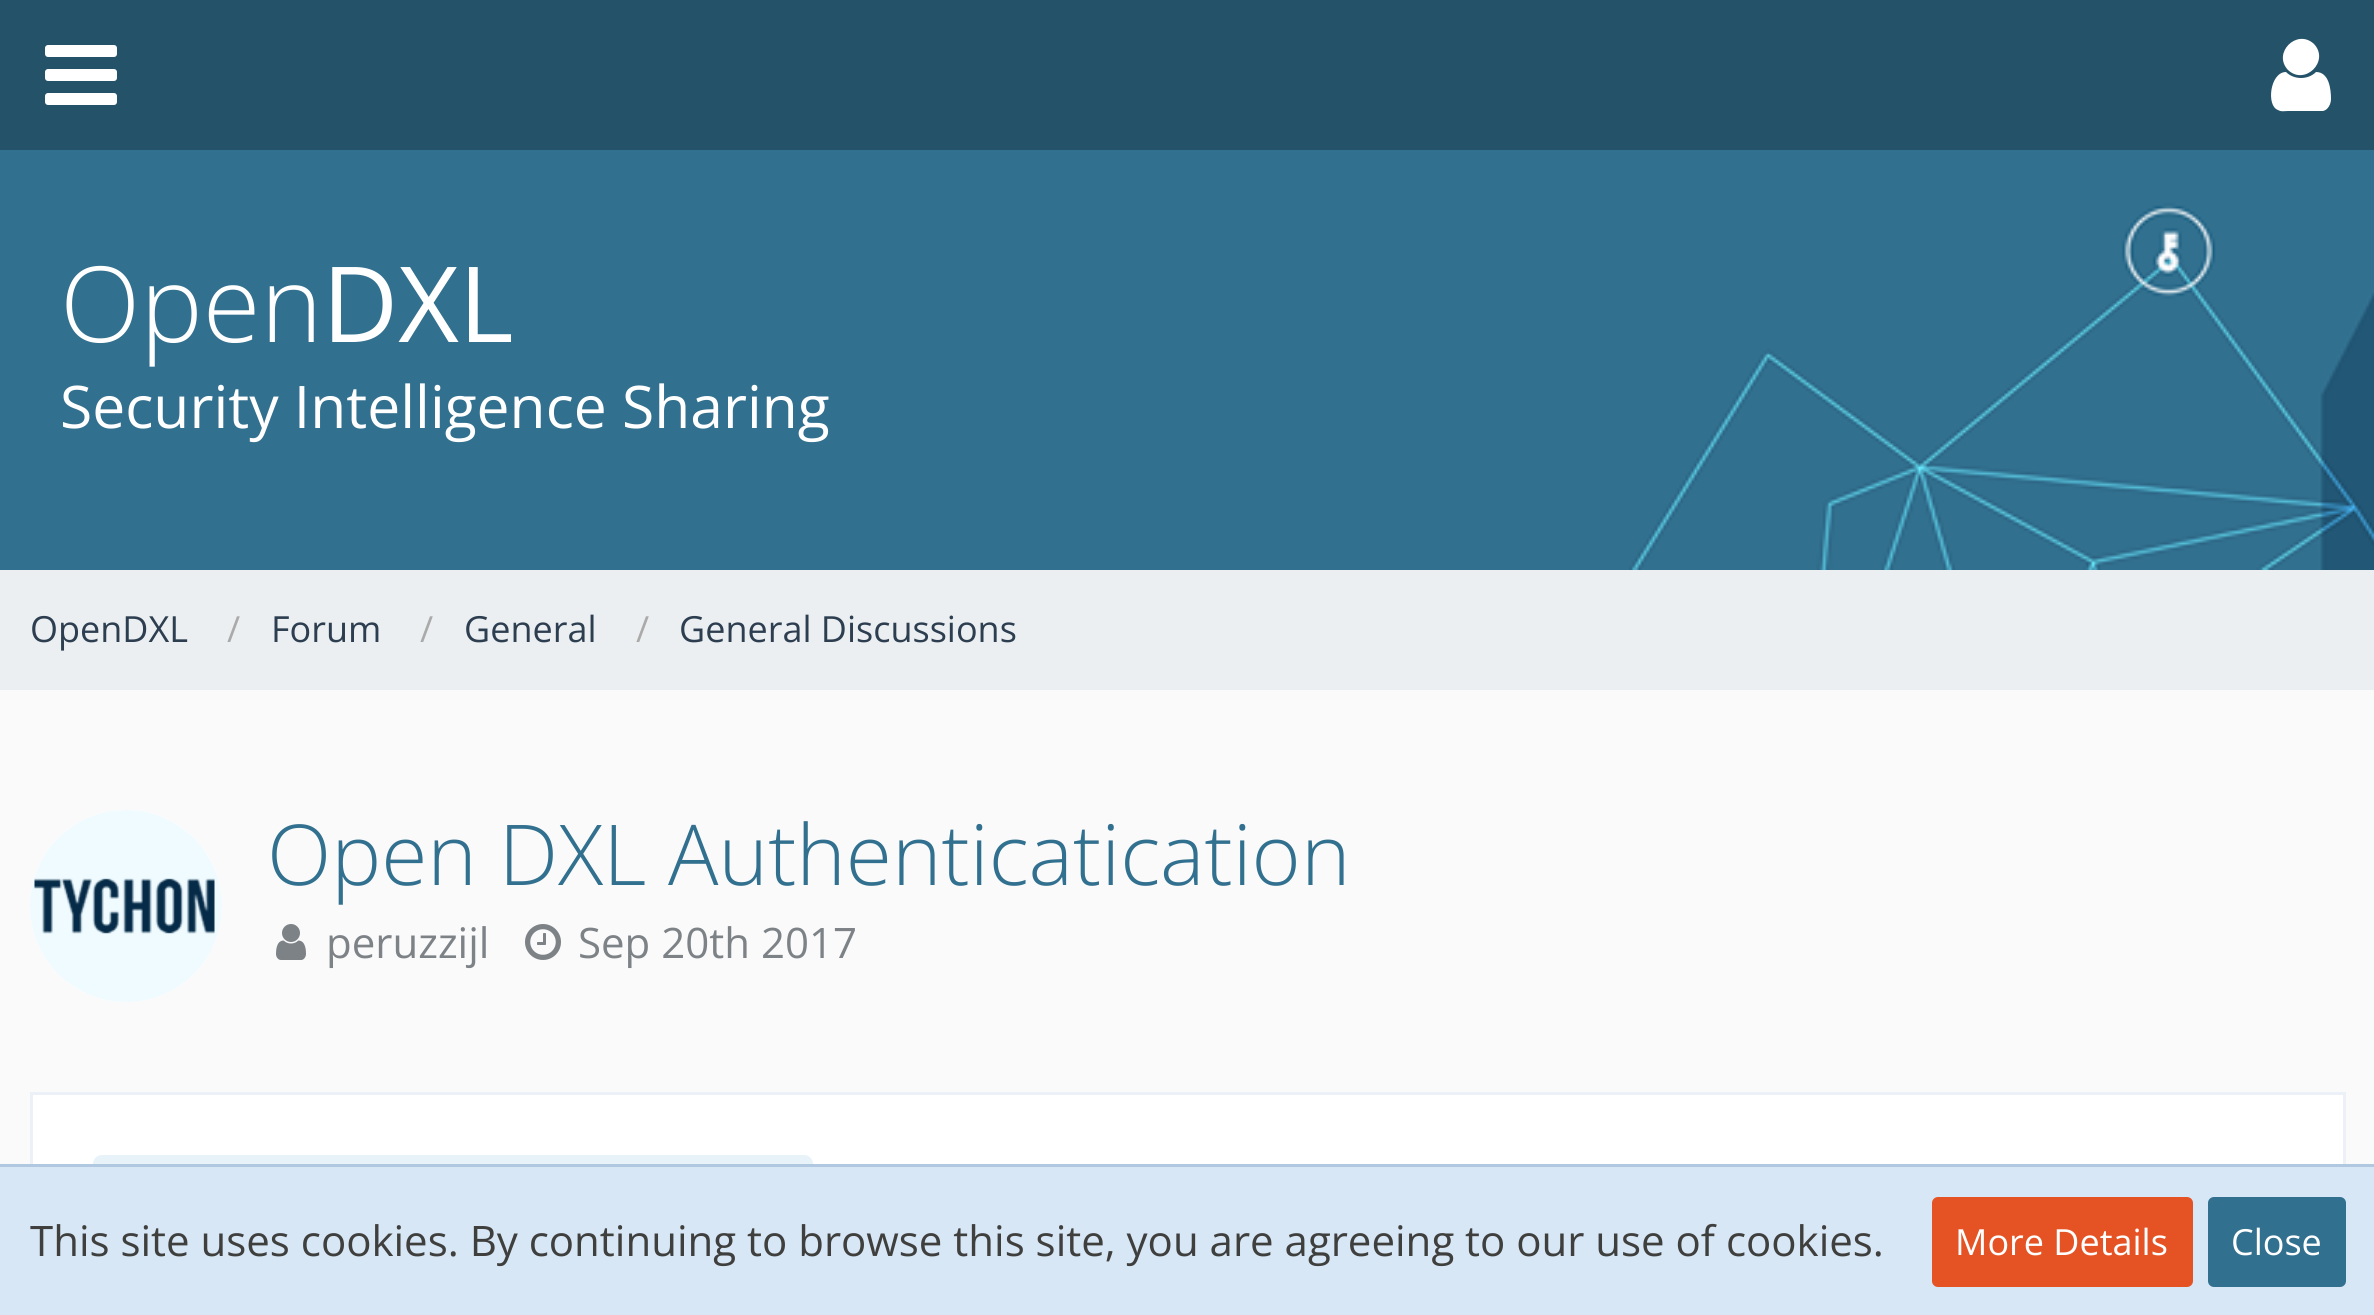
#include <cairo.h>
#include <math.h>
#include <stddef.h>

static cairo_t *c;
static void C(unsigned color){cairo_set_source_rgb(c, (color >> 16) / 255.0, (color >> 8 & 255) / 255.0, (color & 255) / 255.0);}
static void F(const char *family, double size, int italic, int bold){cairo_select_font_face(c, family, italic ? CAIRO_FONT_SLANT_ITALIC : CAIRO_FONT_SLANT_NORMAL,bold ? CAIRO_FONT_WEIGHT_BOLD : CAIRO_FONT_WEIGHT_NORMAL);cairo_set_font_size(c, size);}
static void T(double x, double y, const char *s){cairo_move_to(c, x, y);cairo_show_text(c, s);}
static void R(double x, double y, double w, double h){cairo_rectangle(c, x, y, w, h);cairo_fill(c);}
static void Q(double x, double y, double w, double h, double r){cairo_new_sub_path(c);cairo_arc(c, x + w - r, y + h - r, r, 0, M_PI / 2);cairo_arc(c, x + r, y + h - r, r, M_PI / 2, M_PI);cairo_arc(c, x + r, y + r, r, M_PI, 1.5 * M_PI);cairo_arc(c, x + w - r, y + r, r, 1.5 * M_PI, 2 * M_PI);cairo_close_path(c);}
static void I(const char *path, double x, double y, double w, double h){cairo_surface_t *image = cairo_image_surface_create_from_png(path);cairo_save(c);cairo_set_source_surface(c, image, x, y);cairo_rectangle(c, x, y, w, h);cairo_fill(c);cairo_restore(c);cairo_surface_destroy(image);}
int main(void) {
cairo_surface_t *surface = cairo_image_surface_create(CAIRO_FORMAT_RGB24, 2374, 1315);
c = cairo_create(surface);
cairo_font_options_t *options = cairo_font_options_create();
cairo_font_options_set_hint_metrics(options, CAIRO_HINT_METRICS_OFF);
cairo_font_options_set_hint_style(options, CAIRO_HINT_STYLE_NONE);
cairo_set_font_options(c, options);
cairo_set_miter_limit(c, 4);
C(0xfafafa);
cairo_paint(c);
C(0x245269);
R(0,0,2374,150);
I("1.png",45,45,72,60);
C(0xffffff);
cairo_new_path(c);
cairo_move_to(c,2331,99);
cairo_curve_to(c,2331,104,2328,110,2323,111);
cairo_line_to(c,2288,111);
cairo_curve_to(c,2285,111,2281,112,2278,110);
cairo_curve_to(c,2266,106,2270,72,2286,72);
cairo_curve_to(c,2294,80,2308,80,2316,72);
cairo_curve_to(c,2329,72,2331,89,2331,99);
cairo_close_path(c);
cairo_move_to(c,2314,44);
cairo_curve_to(c,2330,61,2305,86,2288,70);
cairo_curve_to(c,2272,53,2297,28,2314,44);
cairo_close_path(c);
cairo_fill(c);
I("2.png",0,150,2374,420);
F("Open Sans Light",105,0,0);
T(60,342,"Open");
F("Open Sans",105,0,0);
T(322,342,"DXL");
F("Open Sans",58.75,0,0);
T(60,428,"Security Intelligence Sharing");
C(0xeceff1);
R(0,570,2374,120);
F("Open Sans",36,0,0);
C(0x2c3e50);
T(30,642,"OpenDXL");
C(0xaaaaaa);
T(227,642,"/");
C(0x2c3e50);
T(271,642,"Forum");
C(0xaaaaaa);
T(420,642,"/");
C(0x2c3e50);
T(464,642,"General");
C(0xaaaaaa);
T(636,642,"/");
C(0x2c3e50);
T(679,642,"General Discussions");
C(0xffffff);
cairo_new_path(c);
cairo_arc(c,126,906,96,0,2 * M_PI);
cairo_fill(c);
I("3.png",30,810,192,192);
F("Open Sans Light",84,0,0);
C(0x32708f);
T(267,885,"Open DXL Authenticatication");
I("4.png",276,924,30,36);
F("Open Sans",42,0,0);
C(0x7d8287);
T(326,958,"peruzzijl");
I("5.png",525,924,36,36);
T(578,958,"Sep 20th 2017");
C(0xffffff);
R(33,1095,2310,69);
cairo_rectangle(c,31.5,1093.5,2313,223);
C(0xecf1f7);
cairo_set_line_width(c,3);
cairo_stroke(c);
C(0xe8f2f9);
Q(93,1155,720,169,9);
cairo_fill(c);
C(0xd7e7f6);
R(0,1167,2374,148);
C(0xb0c8e0);
R(0,1164,2374,3);
C(0x3f3f3e);
T(30,1256,"This site uses cookies. By continuing to browse this site, you are agreeing to our use of cookies.");
C(0xe55325);
Q(1932,1197,261,90,6);
cairo_fill(c);
F("Open Sans",36,0,0);
C(0xffffff);
T(1955,1255,"More Details");
C(0x32708f);
Q(2208,1197,138,90,6);
cairo_fill(c);
C(0xffffff);
T(2231,1255,"Close");
cairo_surface_write_to_png(surface, "o.png");
cairo_font_options_destroy(options);
cairo_destroy(c);
cairo_surface_destroy(surface);
return 0;
}
